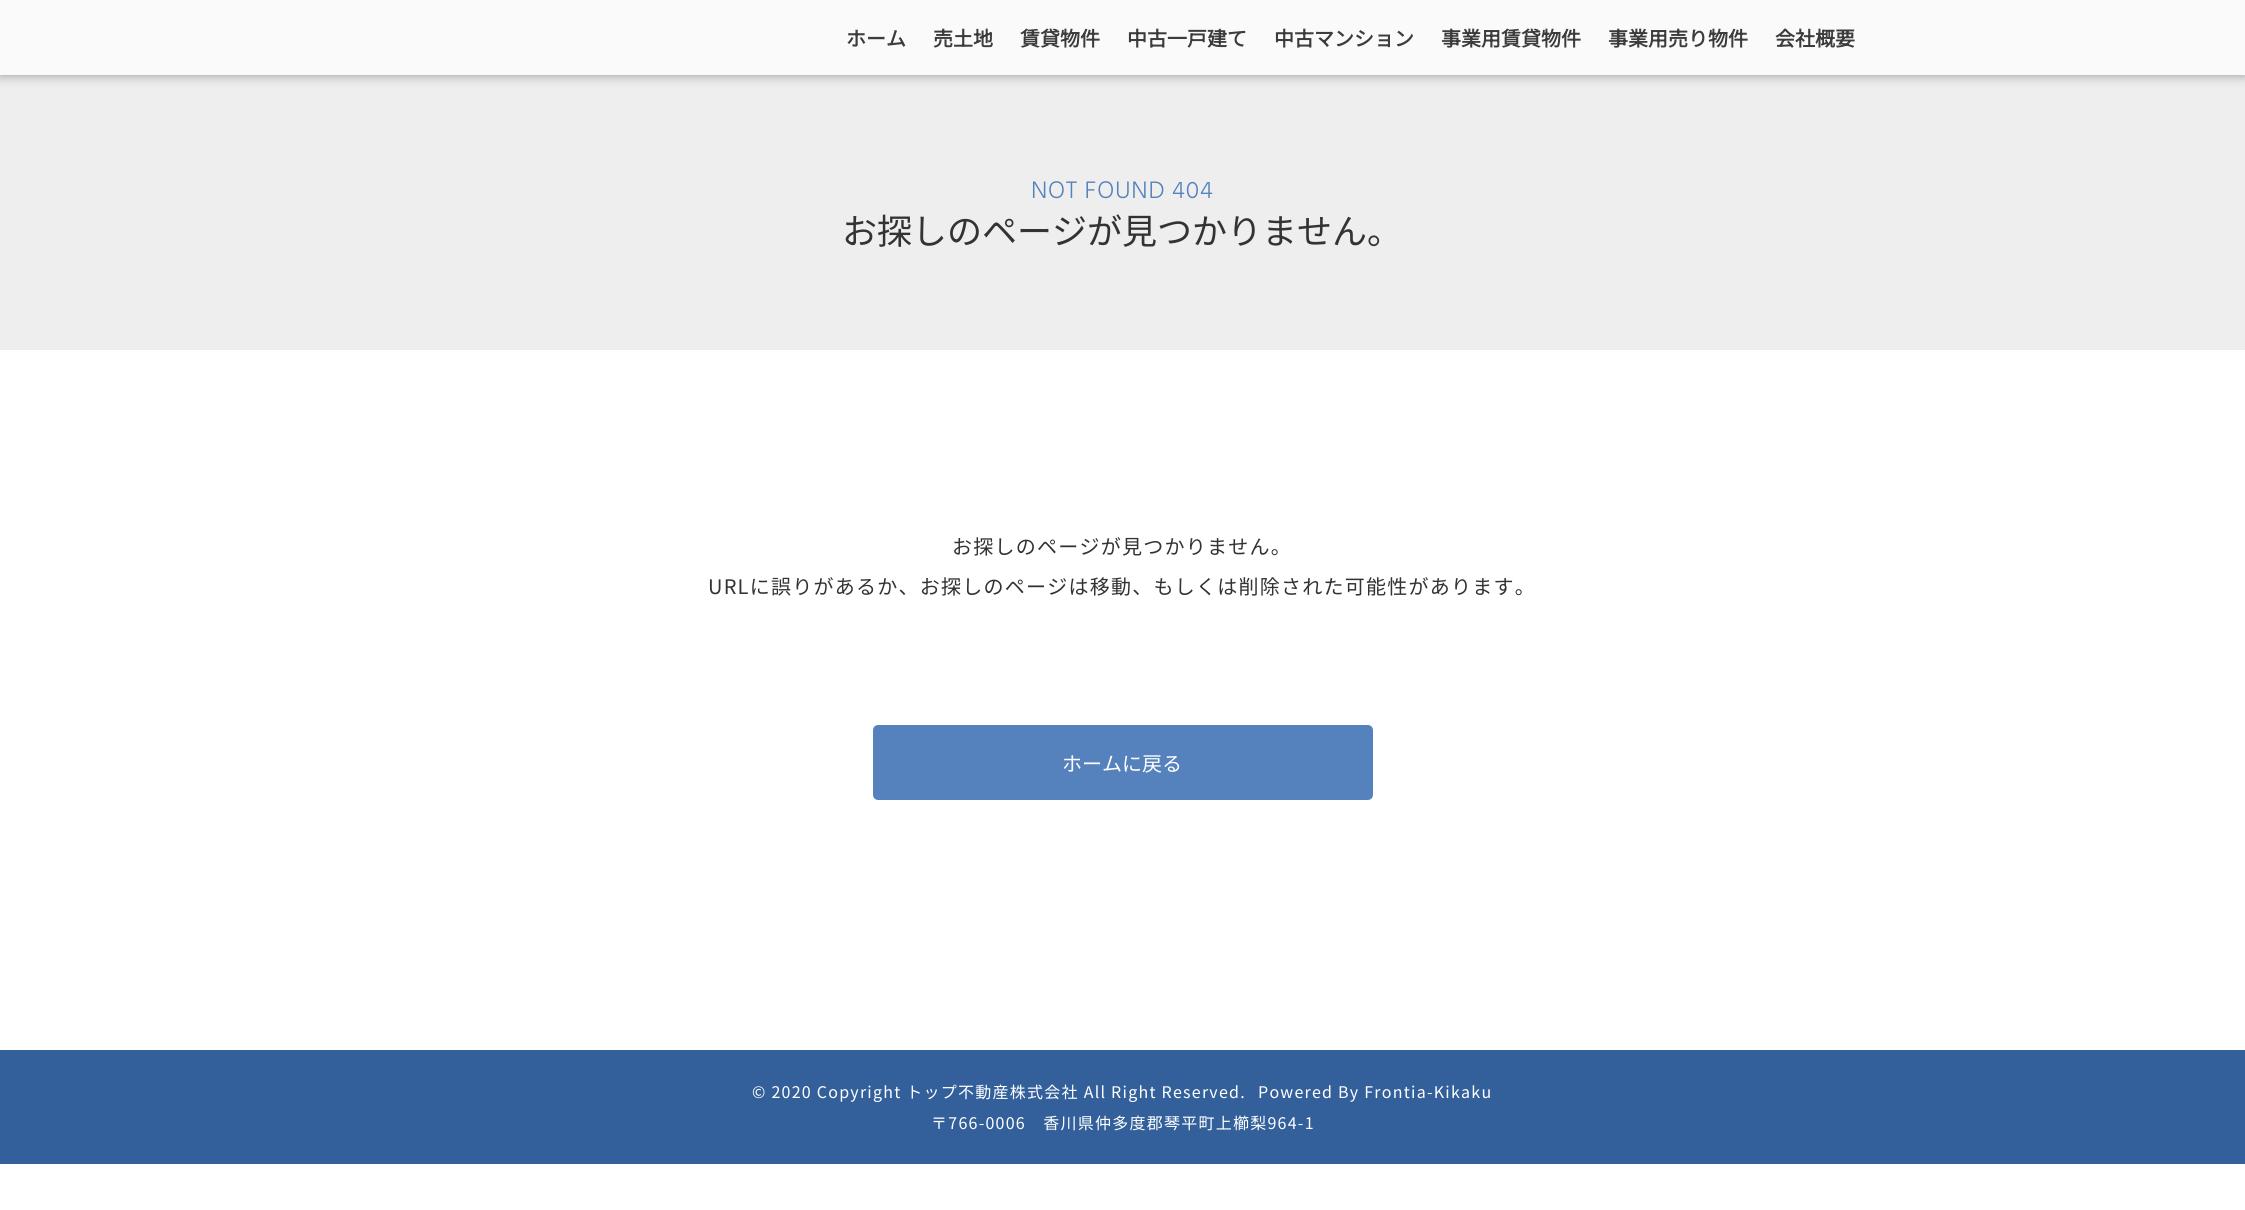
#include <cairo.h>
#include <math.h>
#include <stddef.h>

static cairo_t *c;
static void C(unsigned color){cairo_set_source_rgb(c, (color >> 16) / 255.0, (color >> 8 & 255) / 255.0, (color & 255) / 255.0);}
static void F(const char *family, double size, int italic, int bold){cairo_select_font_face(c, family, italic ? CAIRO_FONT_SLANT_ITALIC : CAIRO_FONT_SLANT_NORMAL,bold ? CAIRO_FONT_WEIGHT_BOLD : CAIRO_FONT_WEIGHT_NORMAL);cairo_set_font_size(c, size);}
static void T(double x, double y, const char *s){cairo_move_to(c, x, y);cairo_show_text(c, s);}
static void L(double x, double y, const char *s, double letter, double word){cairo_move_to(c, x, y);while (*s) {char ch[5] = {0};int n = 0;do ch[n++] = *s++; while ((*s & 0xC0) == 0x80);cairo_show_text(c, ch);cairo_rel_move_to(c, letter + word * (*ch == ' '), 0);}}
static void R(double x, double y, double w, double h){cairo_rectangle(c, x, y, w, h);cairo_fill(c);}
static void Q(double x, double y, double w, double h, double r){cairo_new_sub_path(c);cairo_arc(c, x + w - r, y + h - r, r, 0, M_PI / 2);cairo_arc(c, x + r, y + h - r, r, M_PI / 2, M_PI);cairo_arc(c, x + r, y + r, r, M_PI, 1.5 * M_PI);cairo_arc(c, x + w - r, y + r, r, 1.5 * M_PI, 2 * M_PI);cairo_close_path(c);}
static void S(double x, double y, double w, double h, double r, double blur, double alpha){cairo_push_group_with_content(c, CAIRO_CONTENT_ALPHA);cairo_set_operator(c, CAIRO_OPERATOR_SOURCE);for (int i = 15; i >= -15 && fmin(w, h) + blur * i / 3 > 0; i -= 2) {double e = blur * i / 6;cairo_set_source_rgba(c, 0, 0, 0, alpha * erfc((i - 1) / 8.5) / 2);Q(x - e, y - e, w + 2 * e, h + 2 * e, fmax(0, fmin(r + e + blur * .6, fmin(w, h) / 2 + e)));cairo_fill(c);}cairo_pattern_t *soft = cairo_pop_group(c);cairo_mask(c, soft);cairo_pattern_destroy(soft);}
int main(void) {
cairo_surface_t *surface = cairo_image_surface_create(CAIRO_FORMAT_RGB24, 2245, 1210);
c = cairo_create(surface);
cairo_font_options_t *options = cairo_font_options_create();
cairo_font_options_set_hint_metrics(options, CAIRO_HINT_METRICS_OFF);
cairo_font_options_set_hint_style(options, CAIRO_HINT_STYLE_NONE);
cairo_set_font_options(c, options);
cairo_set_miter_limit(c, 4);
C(0xffffff);
cairo_paint(c);
C(0xeeeeee);
R(0,75,2245,275);
C(0x000000);
S(0,0,2245,75,0,6,.37);
C(0xfafafa);
R(0,0,2245,75);
F("Noto Sans JP",20,0,1);
C(0x3c3c3c);
T(846,46,"ホーム");
T(933,46,"売土地");
T(1020,46,"賃貸物件");
T(1127,46,"中古一戸建て");
T(1274,46,"中古マンション");
T(1441,46,"事業用賃貸物件");
T(1608,46,"事業用売り物件");
T(1775,46,"会社概要");
F("Hind Guntur Light",24.5,0,0);
C(0x5582bc);
L(1031,198,"NOT FOUND 404",.75,0);
F("Noto Sans JP Thin",35,0,0);
C(0x333333);
T(842,244,"お探しのページが見つかりません。");
F("Noto Sans JP Thin",20,0,0);
L(952,554,"お探しのページが見つかりません。",1.25,0);
L(708,594,"URLに誤りがあるか、お探しのページは移動、もしくは削除された可能性があります。",1.25,0);
Q(874.5,726.5,497,72,3.5);
C(0x5582bc);
cairo_set_line_width(c,3);
cairo_stroke(c);
R(876,728,494,69);
C(0xffffff);
T(1062,771,"ホームに戻る");
C(0x33609a);
R(0,1050,2245,114);
F("Noto Sans JP Thin",16,0,0);
C(0xffffff);
L(752,1098,"© 2020 Copyright トップ不動産株式会社 All Right Reserved.",1.25,0);
L(1258,1098,"Powered By Frontia-Kikaku",1.25,0);
L(931,1129,"〒766-0006　香川県仲多度郡琴平町上櫛梨964-1",1.25,0);
cairo_surface_write_to_png(surface, "o.png");
cairo_font_options_destroy(options);
cairo_destroy(c);
cairo_surface_destroy(surface);
return 0;
}
